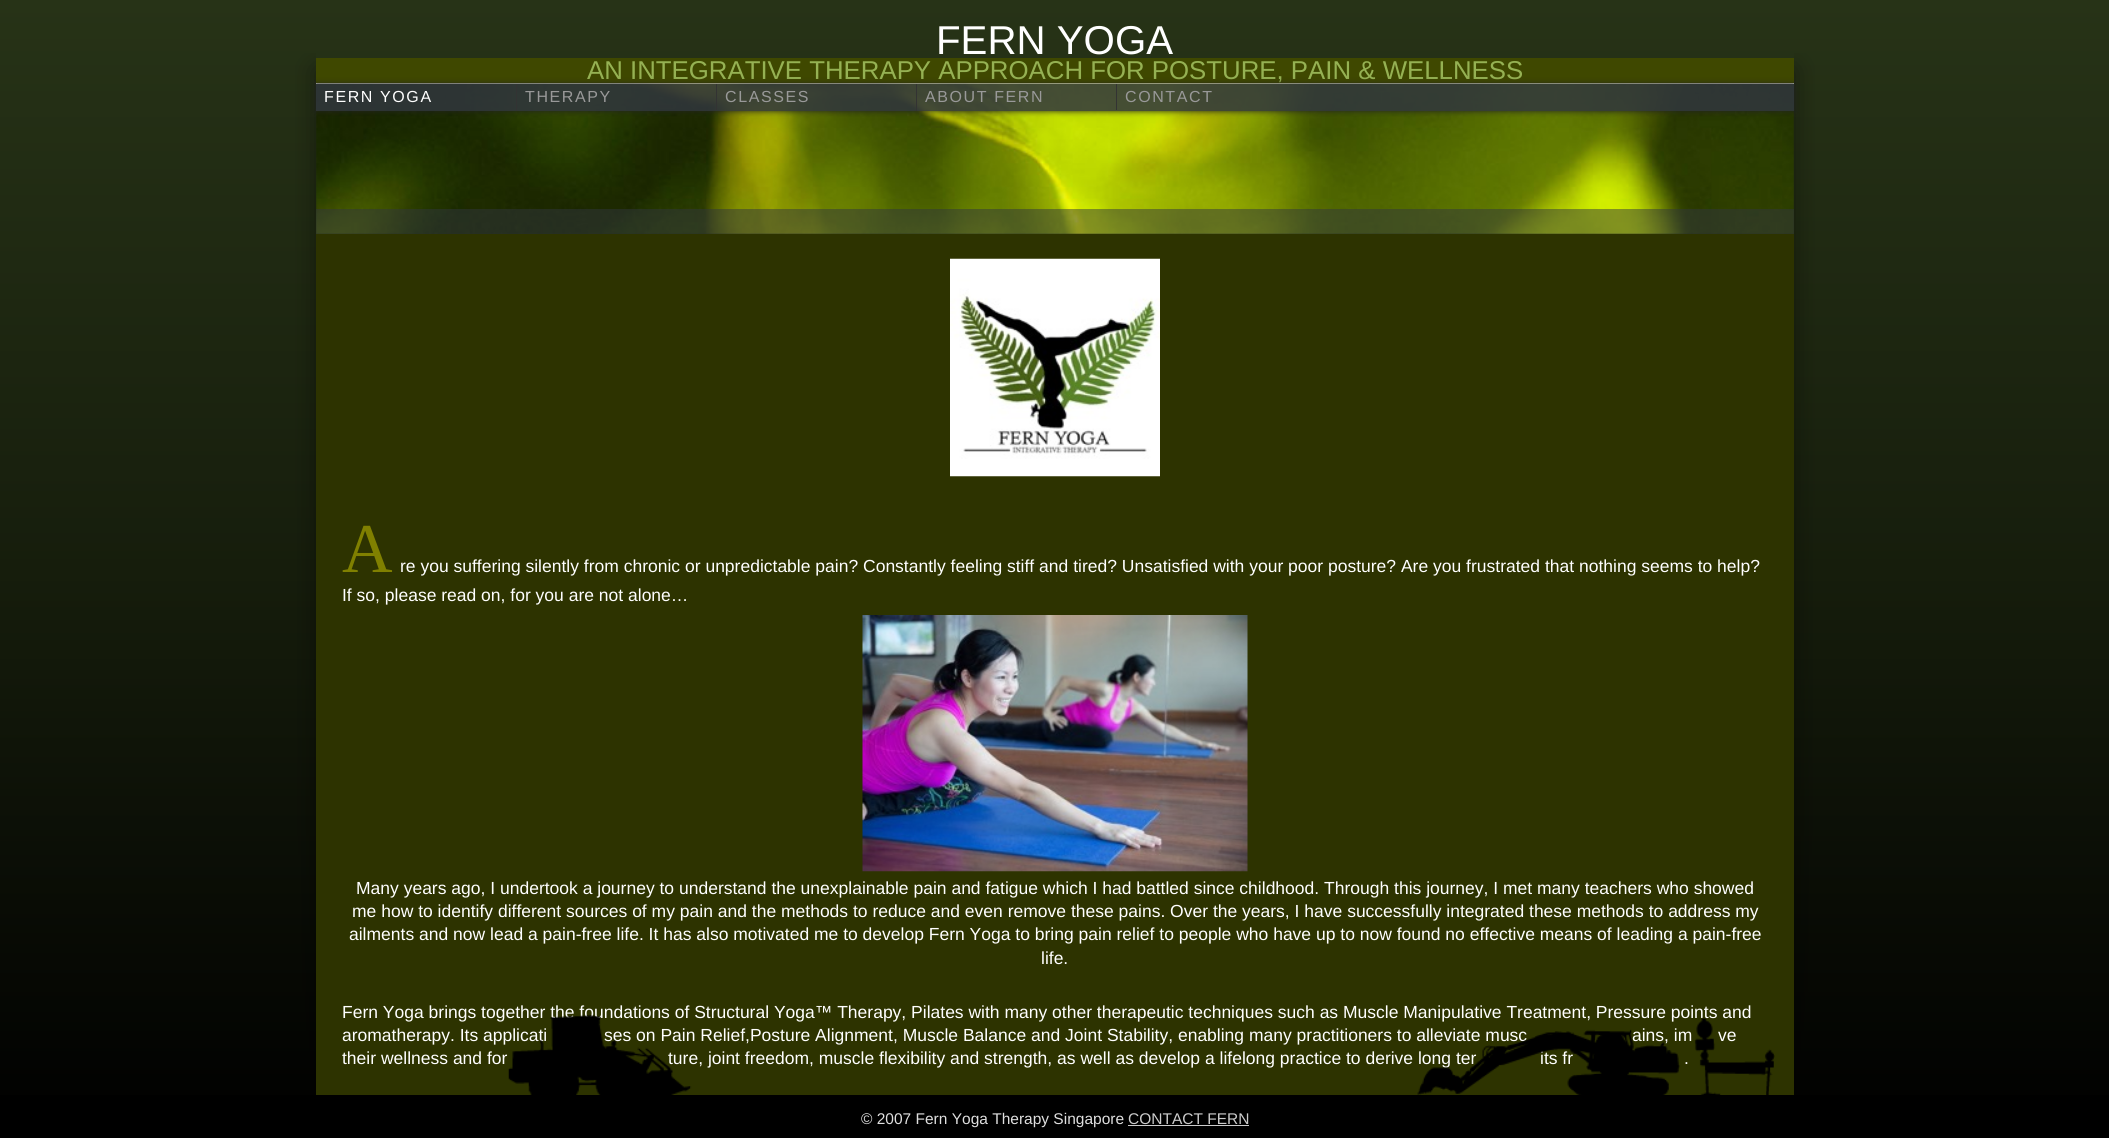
#include <cairo.h>
#include <math.h>
#include <stddef.h>

static cairo_t *c;
static void C(unsigned color){cairo_set_source_rgb(c, (color >> 16) / 255.0, (color >> 8 & 255) / 255.0, (color & 255) / 255.0);}
static void F(const char *family, double size, int italic, int bold){cairo_select_font_face(c, family, italic ? CAIRO_FONT_SLANT_ITALIC : CAIRO_FONT_SLANT_NORMAL,bold ? CAIRO_FONT_WEIGHT_BOLD : CAIRO_FONT_WEIGHT_NORMAL);cairo_set_font_size(c, size);}
static void T(double x, double y, const char *s){cairo_move_to(c, x, y);cairo_show_text(c, s);}
static void L(double x, double y, const char *s, double letter, double word){cairo_move_to(c, x, y);while (*s) {char ch[5] = {0};int n = 0;do ch[n++] = *s++; while ((*s & 0xC0) == 0x80);cairo_show_text(c, ch);cairo_rel_move_to(c, letter + word * (*ch == ' '), 0);}}
static void R(double x, double y, double w, double h){cairo_rectangle(c, x, y, w, h);cairo_fill(c);}
static void Q(double x, double y, double w, double h, double r){cairo_new_sub_path(c);cairo_arc(c, x + w - r, y + h - r, r, 0, M_PI / 2);cairo_arc(c, x + r, y + h - r, r, M_PI / 2, M_PI);cairo_arc(c, x + r, y + r, r, M_PI, 1.5 * M_PI);cairo_arc(c, x + w - r, y + r, r, 1.5 * M_PI, 2 * M_PI);cairo_close_path(c);}
static void S(double x, double y, double w, double h, double r, double blur, double alpha){cairo_push_group_with_content(c, CAIRO_CONTENT_ALPHA);cairo_set_operator(c, CAIRO_OPERATOR_SOURCE);for (int i = 15; i >= -15 && fmin(w, h) + blur * i / 3 > 0; i -= 2) {double e = blur * i / 6;cairo_set_source_rgba(c, 0, 0, 0, alpha * erfc((i - 1) / 8.5) / 2);Q(x - e, y - e, w + 2 * e, h + 2 * e, fmax(0, fmin(r + e + blur * .6, fmin(w, h) / 2 + e)));cairo_fill(c);}cairo_pattern_t *soft = cairo_pop_group(c);cairo_mask(c, soft);cairo_pattern_destroy(soft);}
static void I(const char *path, double x, double y, double w, double h){cairo_surface_t *image = cairo_image_surface_create_from_png(path);cairo_save(c);cairo_set_source_surface(c, image, x, y);cairo_rectangle(c, x, y, w, h);cairo_fill(c);cairo_restore(c);cairo_surface_destroy(image);}
int main(void) {
cairo_surface_t *surface = cairo_image_surface_create(CAIRO_FORMAT_RGB24, 2109, 1138);
c = cairo_create(surface);
cairo_font_options_t *options = cairo_font_options_create();
cairo_font_options_set_hint_metrics(options, CAIRO_HINT_METRICS_OFF);
cairo_font_options_set_hint_style(options, CAIRO_HINT_STYLE_NONE);
cairo_set_font_options(c, options);
cairo_set_miter_limit(c, 4);
cairo_pattern_t *gradient;
C(0xffffff);
cairo_paint(c);
gradient = cairo_pattern_create_linear(1055,0,1055,570);
cairo_pattern_add_color_stop_rgba(gradient,0,0.153,0.2,0.09,1);
cairo_pattern_add_color_stop_rgba(gradient,1,0.086,0.114,0.047,1);
cairo_set_source(c,gradient);
cairo_pattern_destroy(gradient);
R(0,0,2109,570);
gradient = cairo_pattern_create_linear(1055,570,1055,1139);
cairo_pattern_add_color_stop_rgba(gradient,0,0.086,0.114,0.047,1);
cairo_pattern_add_color_stop_rgba(gradient,1,0,0,0,1);
cairo_set_source(c,gradient);
cairo_pattern_destroy(gradient);
R(0,570,2109,525);
cairo_save(c);
cairo_rectangle(c,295,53,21,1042);
cairo_clip(c);
C(0x000000);
S(316,69,1453,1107,0,12.5,.4);
cairo_restore(c);
cairo_save(c);
cairo_rectangle(c,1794,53,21,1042);
cairo_clip(c);
C(0x000000);
S(341,69,1453,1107,0,12.5,.4);
cairo_restore(c);
F("Liberation Sans",40.25,0,0);
C(0xffffff);
T(936,54,"FERN YOGA");
C(0x3f4800);
R(316,58,1478,25);
C(0xffffff);
R(316,83,1478,1);
F("Liberation Sans",25.8,0,0);
C(0x95b153);
T(587,79,"AN INTEGRATIVE THERAPY APPROACH FOR POSTURE, PAIN & WELLNESS");
C(0x202a13);
R(316,84,1478,84);
I("1.png",316,83,1478,151);
cairo_save(c);
cairo_set_fill_rule(c,CAIRO_FILL_RULE_EVEN_ODD);
cairo_new_path(c);
cairo_move_to(c,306,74);
cairo_line_to(c,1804,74);
cairo_line_to(c,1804,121);
cairo_line_to(c,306,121);
cairo_close_path(c);
cairo_move_to(c,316,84);
cairo_line_to(c,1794,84);
cairo_line_to(c,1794,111);
cairo_line_to(c,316,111);
cairo_close_path(c);
cairo_clip(c);
C(0x222222);
S(316,84,1478,27,0,3,1);
cairo_restore(c);
cairo_set_source_rgba(c,0.192,0.212,0.243,0.85);
R(316,84,1478,27);
F("Liberation Sans",16,0,0);
C(0xffffff);
L(324,102,"FERN YOGA",1.6,0);
C(0x333333);
R(516,84,1,27);
C(0x999999);
L(525,102,"THERAPY",1.6,0);
C(0x333333);
R(716,84,1,26);
C(0x999999);
L(725,102,"CLASSES",1.6,0);
C(0x333333);
R(916,84,1,27);
C(0x999999);
L(925,102,"ABOUT FERN",1.6,0);
C(0x333333);
R(1116,84,1,26);
C(0x999999);
L(1125,102,"CONTACT",1.6,0);
cairo_set_source_rgba(c,0.192,0.212,0.243,0.5);
R(316,209,1478,25);
C(0x2d3300);
R(316,234,1478,861);
I("2.png",950,258,210,219);
F("Liberation Serif",70,0,0);
C(0x808000);
L(342,572,"A",8,0);
F("Liberation Sans",17.5,0,0);
C(0xffffff);
T(400,572,"re you suffering silently from chronic or unpredictable pain? Constantly feeling stiff and tired? Unsatisfied with your poor posture? Are you frustrated that nothing seems to help?");
T(342,601,"If so, please read on, for you are not alone…");
I("3.png",862,615,386,257);
T(356,894,"Many years ago, I undertook a journey to understand the unexplainable pain and fatigue which I had battled since childhood. Through this journey, I met many teachers who showed");
T(352,917,"me how to identify different sources of my pain and the methods to reduce and even remove these pains. Over the years, I have successfully integrated these methods to address my");
T(349,940,"ailments and now lead a pain-free life. It has also motivated me to develop Fern Yoga to bring pain relief to people who have up to now found no effective means of leading a pain-free");
T(1041,964,"life.");
T(342,1018,"Fern Yoga brings together the foundations of Structural Yoga™ Therapy, Pilates with many other therapeutic techniques such as Muscle Manipulative Treatment, Pressure points and");
T(342,1041,"aromatherapy. Its applicati");
T(604,1041,"ses on Pain Relief,Posture Alignment, Muscle Balance and Joint Stability, enabling many practitioners to alleviate musc");
T(1632,1041,"ains, im");
T(1718,1041,"ve");
T(342,1064,"their wellness and for");
T(668,1064,"ture, joint freedom, muscle flexibility and strength, as well as develop a lifelong practice to derive long ter");
T(1540,1064,"its fr");
T(1684,1064,".");
I("4.png",508,1014,1267,81);
C(0x000000);
R(0,1095,2109,43);
F("Liberation Sans",15.5,0,0);
C(0xdfdfdf);
T(861,1124,"© 2007 Fern Yoga Therapy Singapore");
C(0xcccccc);
T(1128,1124,"CONTACT FERN");
R(1128,1125,121,1);
cairo_surface_write_to_png(surface, "o.png");
cairo_font_options_destroy(options);
cairo_destroy(c);
cairo_surface_destroy(surface);
return 0;
}
